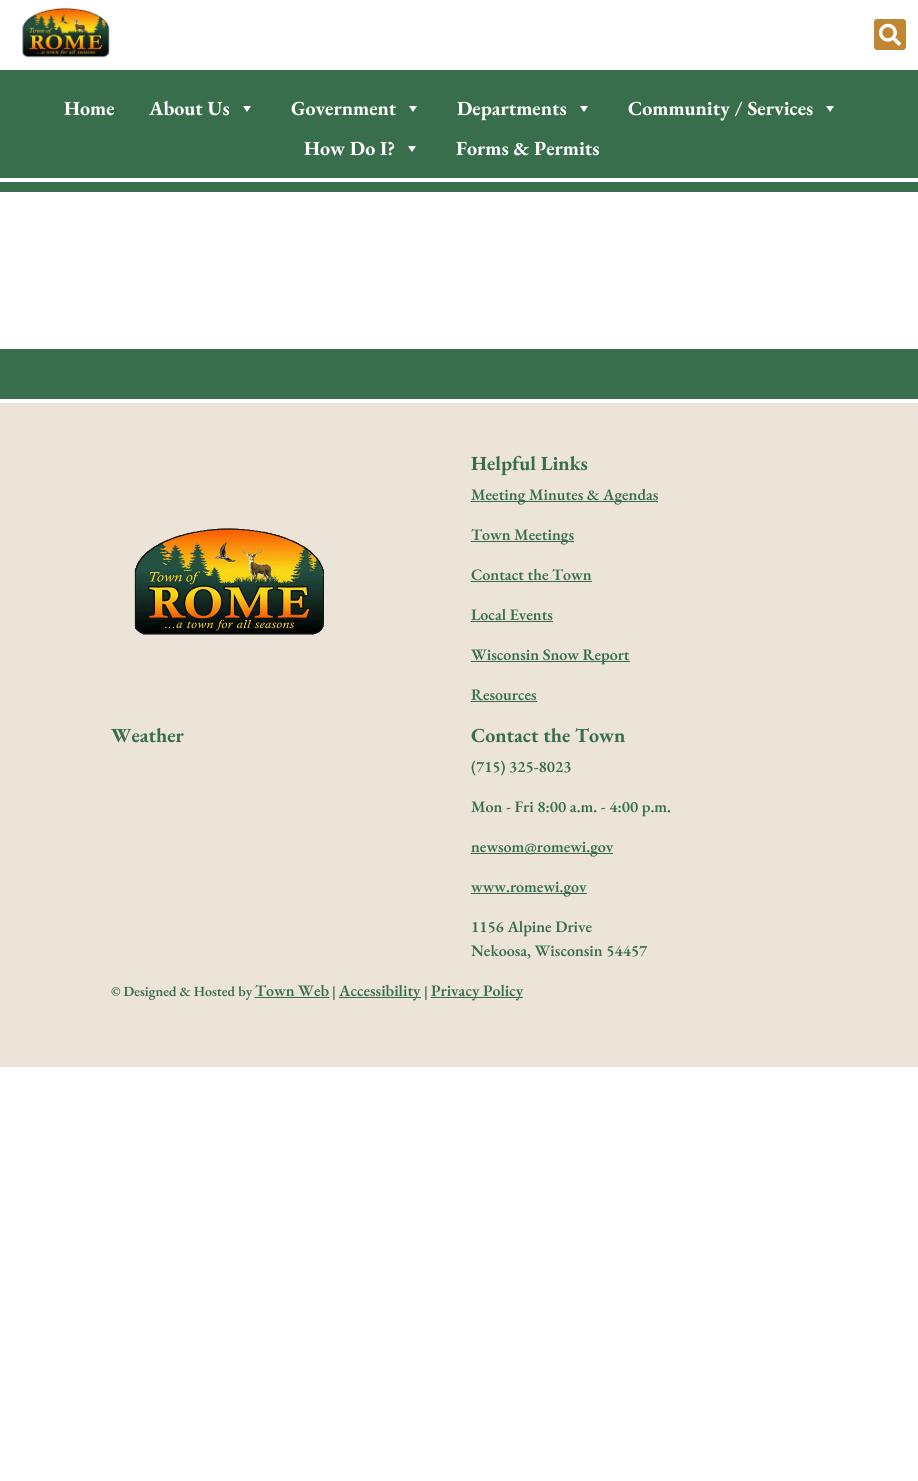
#include <cairo.h>
#include <math.h>
#include <stddef.h>

static cairo_t *c;
static void C(unsigned color){cairo_set_source_rgb(c, (color >> 16) / 255.0, (color >> 8 & 255) / 255.0, (color & 255) / 255.0);}
static void F(const char *family, double size, int italic, int bold){cairo_select_font_face(c, family, italic ? CAIRO_FONT_SLANT_ITALIC : CAIRO_FONT_SLANT_NORMAL,bold ? CAIRO_FONT_WEIGHT_BOLD : CAIRO_FONT_WEIGHT_NORMAL);cairo_set_font_size(c, size);}
static void T(double x, double y, const char *s){cairo_move_to(c, x, y);cairo_show_text(c, s);}
static void R(double x, double y, double w, double h){cairo_rectangle(c, x, y, w, h);cairo_fill(c);}
static void Q(double x, double y, double w, double h, double r){cairo_new_sub_path(c);cairo_arc(c, x + w - r, y + h - r, r, 0, M_PI / 2);cairo_arc(c, x + r, y + h - r, r, M_PI / 2, M_PI);cairo_arc(c, x + r, y + r, r, M_PI, 1.5 * M_PI);cairo_arc(c, x + w - r, y + r, r, 1.5 * M_PI, 2 * M_PI);cairo_close_path(c);}
static void I(const char *path, double x, double y, double w, double h){cairo_surface_t *image = cairo_image_surface_create_from_png(path);cairo_save(c);cairo_set_source_surface(c, image, x, y);cairo_rectangle(c, x, y, w, h);cairo_fill(c);cairo_restore(c);cairo_surface_destroy(image);}
int main(void) {
cairo_surface_t *surface = cairo_image_surface_create(CAIRO_FORMAT_RGB24, 918, 1481);
c = cairo_create(surface);
cairo_font_options_t *options = cairo_font_options_create();
cairo_font_options_set_hint_metrics(options, CAIRO_HINT_METRICS_OFF);
cairo_font_options_set_hint_style(options, CAIRO_HINT_STYLE_NONE);
cairo_set_font_options(c, options);
cairo_set_miter_limit(c, 4);
C(0xffffff);
cairo_paint(c);
C(0x396e4c);
R(0,70,918,122);
I("1.png",22,7,88,51);
C(0xc08632);
Q(874,19,32,31,3);
cairo_fill(c);
I("2.png",879,23,22,23);
F("EB Garamond",20,0,1);
C(0xffffff);
T(64,115,"Home");
T(149,115,"About Us");
cairo_new_path(c);
cairo_move_to(c,251,106);
cairo_line_to(c,247,112);
cairo_line_to(c,243,106);
cairo_close_path(c);
cairo_fill(c);
T(291,115,"Government");
cairo_new_path(c);
cairo_move_to(c,417,106);
cairo_line_to(c,413,112);
cairo_line_to(c,409,106);
cairo_close_path(c);
cairo_fill(c);
T(457,115,"Departments");
cairo_new_path(c);
cairo_move_to(c,588,106);
cairo_line_to(c,584,112);
cairo_line_to(c,580,106);
cairo_close_path(c);
cairo_fill(c);
T(628,115,"Community / Services");
cairo_new_path(c);
cairo_move_to(c,834,106);
cairo_line_to(c,830,112);
cairo_line_to(c,826,106);
cairo_close_path(c);
cairo_fill(c);
T(304,155,"How Do I?");
cairo_new_path(c);
cairo_move_to(c,416,146);
cairo_line_to(c,412,152);
cairo_line_to(c,408,146);
cairo_close_path(c);
cairo_fill(c);
T(456,155,"Forms & Permits");
R(0,178,918,4);
C(0xece4d8);
R(0,403,918,664);
C(0x396e4c);
R(0,349,918,50);
I("3.png",134,528,190,107);
T(471,470,"Helpful Links");
R(471,501,187,1);
F("EB Garamond SemiBold",16,0,0);
T(471,500,"Meeting Minutes & Agendas");
R(471,541,103,1);
T(471,540,"Town Meetings");
T(471,580,"Contact the Town");
R(471,581,121,1);
T(471,620,"Local Events");
R(471,621,82,1);
R(471,661,159,1);
T(471,660,"Wisconsin Snow Report");
T(471,700,"Resources");
R(471,701,66,1);
F("EB Garamond",20,0,1);
T(111,742,"Weather");
T(471,742,"Contact the Town");
F("EB Garamond SemiBold",16,0,0);
T(471,772,"(715) 325-8023");
T(471,812,"Mon - Fri 8:00 a.m. - 4:00 p.m.");
R(471,853,142,1);
T(471,852,"newsom@romewi.gov");
R(471,893,116,1);
T(471,892,"www.romewi.gov");
T(471,932,"1156 Alpine Drive");
T(471,956,"Nekoosa, Wisconsin 54457");
F("EB Garamond SemiBold",14,0,0);
T(111,996,"© Designed & Hosted by");
F("EB Garamond SemiBold",16,0,0);
T(255,996,"Town Web");
R(255,997,74,1);
F("EB Garamond SemiBold",14,0,0);
T(332,996,"|");
R(339,997,82,1);
F("EB Garamond SemiBold",16,0,0);
T(339,996,"Accessibility");
F("EB Garamond SemiBold",14,0,0);
T(424,996,"|");
R(431,997,92,1);
F("EB Garamond SemiBold",16,0,0);
T(431,996,"Privacy Policy");
cairo_surface_write_to_png(surface, "o.png");
cairo_font_options_destroy(options);
cairo_destroy(c);
cairo_surface_destroy(surface);
return 0;
}
